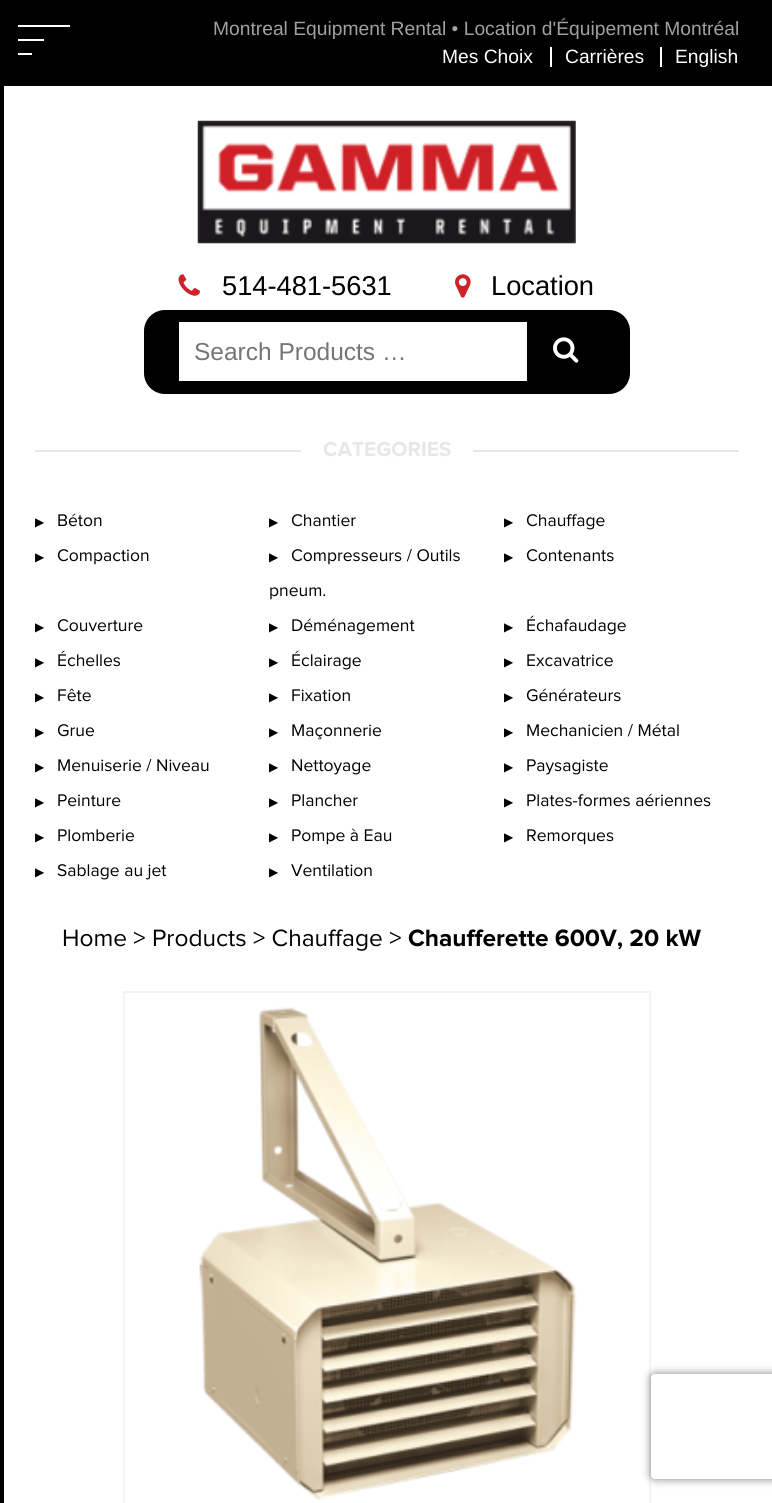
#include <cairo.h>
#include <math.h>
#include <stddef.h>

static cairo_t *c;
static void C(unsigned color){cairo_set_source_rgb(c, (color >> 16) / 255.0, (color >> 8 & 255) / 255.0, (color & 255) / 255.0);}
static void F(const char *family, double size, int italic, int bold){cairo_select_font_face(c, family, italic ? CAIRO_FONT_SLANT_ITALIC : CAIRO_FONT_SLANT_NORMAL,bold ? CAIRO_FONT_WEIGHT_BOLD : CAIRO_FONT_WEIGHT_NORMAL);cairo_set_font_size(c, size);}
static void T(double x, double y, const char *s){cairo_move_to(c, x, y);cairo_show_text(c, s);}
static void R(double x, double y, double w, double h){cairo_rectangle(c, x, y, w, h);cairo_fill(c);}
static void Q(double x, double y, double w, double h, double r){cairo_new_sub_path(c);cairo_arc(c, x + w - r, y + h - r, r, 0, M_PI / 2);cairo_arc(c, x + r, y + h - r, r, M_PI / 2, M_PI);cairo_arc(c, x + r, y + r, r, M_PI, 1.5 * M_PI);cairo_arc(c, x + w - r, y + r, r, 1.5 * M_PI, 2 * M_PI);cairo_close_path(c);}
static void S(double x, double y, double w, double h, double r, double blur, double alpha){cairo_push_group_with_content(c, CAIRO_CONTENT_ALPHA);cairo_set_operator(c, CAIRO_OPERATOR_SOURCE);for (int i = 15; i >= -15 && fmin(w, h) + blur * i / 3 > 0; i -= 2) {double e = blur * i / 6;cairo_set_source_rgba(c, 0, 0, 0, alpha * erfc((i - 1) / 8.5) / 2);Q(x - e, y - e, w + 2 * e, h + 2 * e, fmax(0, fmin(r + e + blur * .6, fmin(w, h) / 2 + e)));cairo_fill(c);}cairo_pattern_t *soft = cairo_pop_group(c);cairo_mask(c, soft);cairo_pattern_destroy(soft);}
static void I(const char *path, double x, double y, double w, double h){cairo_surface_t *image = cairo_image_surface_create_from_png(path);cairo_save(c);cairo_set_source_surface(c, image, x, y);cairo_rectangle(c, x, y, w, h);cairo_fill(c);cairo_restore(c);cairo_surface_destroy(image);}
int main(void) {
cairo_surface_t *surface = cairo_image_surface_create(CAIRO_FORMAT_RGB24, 772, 1503);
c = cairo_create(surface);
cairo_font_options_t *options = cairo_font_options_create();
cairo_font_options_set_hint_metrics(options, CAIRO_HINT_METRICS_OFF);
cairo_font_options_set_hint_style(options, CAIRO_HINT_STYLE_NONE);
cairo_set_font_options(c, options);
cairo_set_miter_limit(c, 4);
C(0x000000);
cairo_paint(c);
F("Liberation Sans",19.25,0,0);
C(0xa2a1a1);
T(213,35,"Montreal Equipment Rental • Location d'Équipement Montréal");
C(0xffffff);
T(442,63,"Mes Choix");
R(550,47,2,20);
T(565,63,"Carrières");
R(660,47,2,20);
T(675,63,"English");
R(4,86,768,1417);
R(18,25,52,2);
R(18,39,26,2);
R(18,53,14,2);
I("1.png",197,120,379,124);
I("2.png",178,274,22,22);
F("Liberation Sans",27.25,0,0);
C(0x000000);
T(222,295,"514-481-5631");
I("3.png",455,274,16,24);
T(491,295,"Location");
Q(144,310,486,84,21);
cairo_fill(c);
C(0xffffff);
R(179,322,348,59);
F("Liberation Sans",24.5,0,0);
C(0x757575);
T(194,360,"Search Products …");
I("4.png",553,337,26,26);
C(0xe7e7e7);
R(35,450,704,2);
C(0xffffff);
R(301,450,172,2);
F("Proxima Nova",21,0,1);
C(0xe7e7e7);
T(323,456,"CATEGORIES");
F("DejaVu Sans",12,0,0);
C(0x000000);
T(35,526,"▶");
F("Proxima Nova",17.5,0,0);
T(57,526,"Béton");
F("DejaVu Sans",12,0,0);
T(269,526,"▶");
F("Proxima Nova",17.5,0,0);
T(291,526,"Chantier");
F("DejaVu Sans",12,0,0);
T(504,526,"▶");
F("Proxima Nova",17.5,0,0);
T(526,526,"Chauffage");
F("DejaVu Sans",12,0,0);
T(35,561,"▶");
F("Proxima Nova",17.5,0,0);
T(57,561,"Compaction");
F("DejaVu Sans",12,0,0);
T(269,561,"▶");
F("Proxima Nova",17.5,0,0);
T(291,561,"Compresseurs / Outils");
T(269,596,"pneum.");
F("DejaVu Sans",12,0,0);
T(504,561,"▶");
F("Proxima Nova",17.5,0,0);
T(526,561,"Contenants");
F("DejaVu Sans",12,0,0);
T(35,631,"▶");
F("Proxima Nova",17.5,0,0);
T(57,631,"Couverture");
F("DejaVu Sans",12,0,0);
T(269,631,"▶");
F("Proxima Nova",17.5,0,0);
T(291,631,"Déménagement");
F("DejaVu Sans",12,0,0);
T(504,631,"▶");
F("Proxima Nova",17.5,0,0);
T(526,631,"Échafaudage");
F("DejaVu Sans",12,0,0);
T(35,666,"▶");
F("Proxima Nova",17.5,0,0);
T(57,666,"Échelles");
F("DejaVu Sans",12,0,0);
T(269,666,"▶");
F("Proxima Nova",17.5,0,0);
T(291,666,"Éclairage");
F("DejaVu Sans",12,0,0);
T(504,666,"▶");
F("Proxima Nova",17.5,0,0);
T(526,666,"Excavatrice");
F("DejaVu Sans",12,0,0);
T(35,701,"▶");
F("Proxima Nova",17.5,0,0);
T(57,701,"Fête");
F("DejaVu Sans",12,0,0);
T(269,701,"▶");
F("Proxima Nova",17.5,0,0);
T(291,701,"Fixation");
F("DejaVu Sans",12,0,0);
T(504,701,"▶");
F("Proxima Nova",17.5,0,0);
T(526,701,"Générateurs");
F("DejaVu Sans",12,0,0);
T(35,736,"▶");
F("Proxima Nova",17.5,0,0);
T(57,736,"Grue");
F("DejaVu Sans",12,0,0);
T(269,736,"▶");
F("Proxima Nova",17.5,0,0);
T(291,736,"Maçonnerie");
F("DejaVu Sans",12,0,0);
T(504,736,"▶");
F("Proxima Nova",17.5,0,0);
T(526,736,"Mechanicien / Métal");
F("DejaVu Sans",12,0,0);
T(35,771,"▶");
F("Proxima Nova",17.5,0,0);
T(57,771,"Menuiserie / Niveau");
F("DejaVu Sans",12,0,0);
T(269,771,"▶");
F("Proxima Nova",17.5,0,0);
T(291,771,"Nettoyage");
F("DejaVu Sans",12,0,0);
T(504,771,"▶");
F("Proxima Nova",17.5,0,0);
T(526,771,"Paysagiste");
F("DejaVu Sans",12,0,0);
T(35,806,"▶");
F("Proxima Nova",17.5,0,0);
T(57,806,"Peinture");
F("DejaVu Sans",12,0,0);
T(269,806,"▶");
F("Proxima Nova",17.5,0,0);
T(291,806,"Plancher");
F("DejaVu Sans",12,0,0);
T(504,806,"▶");
F("Proxima Nova",17.5,0,0);
T(526,806,"Plates-formes aériennes");
F("DejaVu Sans",12,0,0);
T(35,841,"▶");
F("Proxima Nova",17.5,0,0);
T(57,841,"Plomberie");
F("DejaVu Sans",12,0,0);
T(269,841,"▶");
F("Proxima Nova",17.5,0,0);
T(291,841,"Pompe à Eau");
F("DejaVu Sans",12,0,0);
T(504,841,"▶");
F("Proxima Nova",17.5,0,0);
T(526,841,"Remorques");
F("DejaVu Sans",12,0,0);
T(35,876,"▶");
F("Proxima Nova",17.5,0,0);
T(57,876,"Sablage au jet");
F("DejaVu Sans",12,0,0);
T(269,876,"▶");
F("Proxima Nova",17.5,0,0);
T(291,876,"Ventilation");
F("Proxima Nova",24.5,0,0);
T(62,946,"Home > Products > Chauffage >");
F("Proxima Nova",24.5,0,1);
T(408,946,"Chaufferette 600V, 20 kW");
cairo_rectangle(c,124,992,526,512);
C(0xf3f3f3);
cairo_stroke(c);
I("5.png",199,1007,378,493);
cairo_save(c);
cairo_set_fill_rule(c,CAIRO_FILL_RULE_EVEN_ODD);
cairo_new_path(c);
cairo_move_to(c,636,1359);
cairo_line_to(c,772,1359);
cairo_line_to(c,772,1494);
cairo_line_to(c,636,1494);
cairo_close_path(c);
cairo_move_to(c,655,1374);
cairo_line_to(c,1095,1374);
cairo_curve_to(c,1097,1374,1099,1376,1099,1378);
cairo_line_to(c,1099,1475);
cairo_curve_to(c,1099,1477,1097,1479,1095,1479);
cairo_line_to(c,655,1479);
cairo_curve_to(c,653,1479,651,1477,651,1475);
cairo_line_to(c,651,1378);
cairo_curve_to(c,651,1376,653,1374,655,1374);
cairo_close_path(c);
cairo_clip(c);
C(0x808080);
S(651,1374,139,105,4,4.5,1);
cairo_restore(c);
cairo_surface_write_to_png(surface, "o.png");
cairo_font_options_destroy(options);
cairo_destroy(c);
cairo_surface_destroy(surface);
return 0;
}
